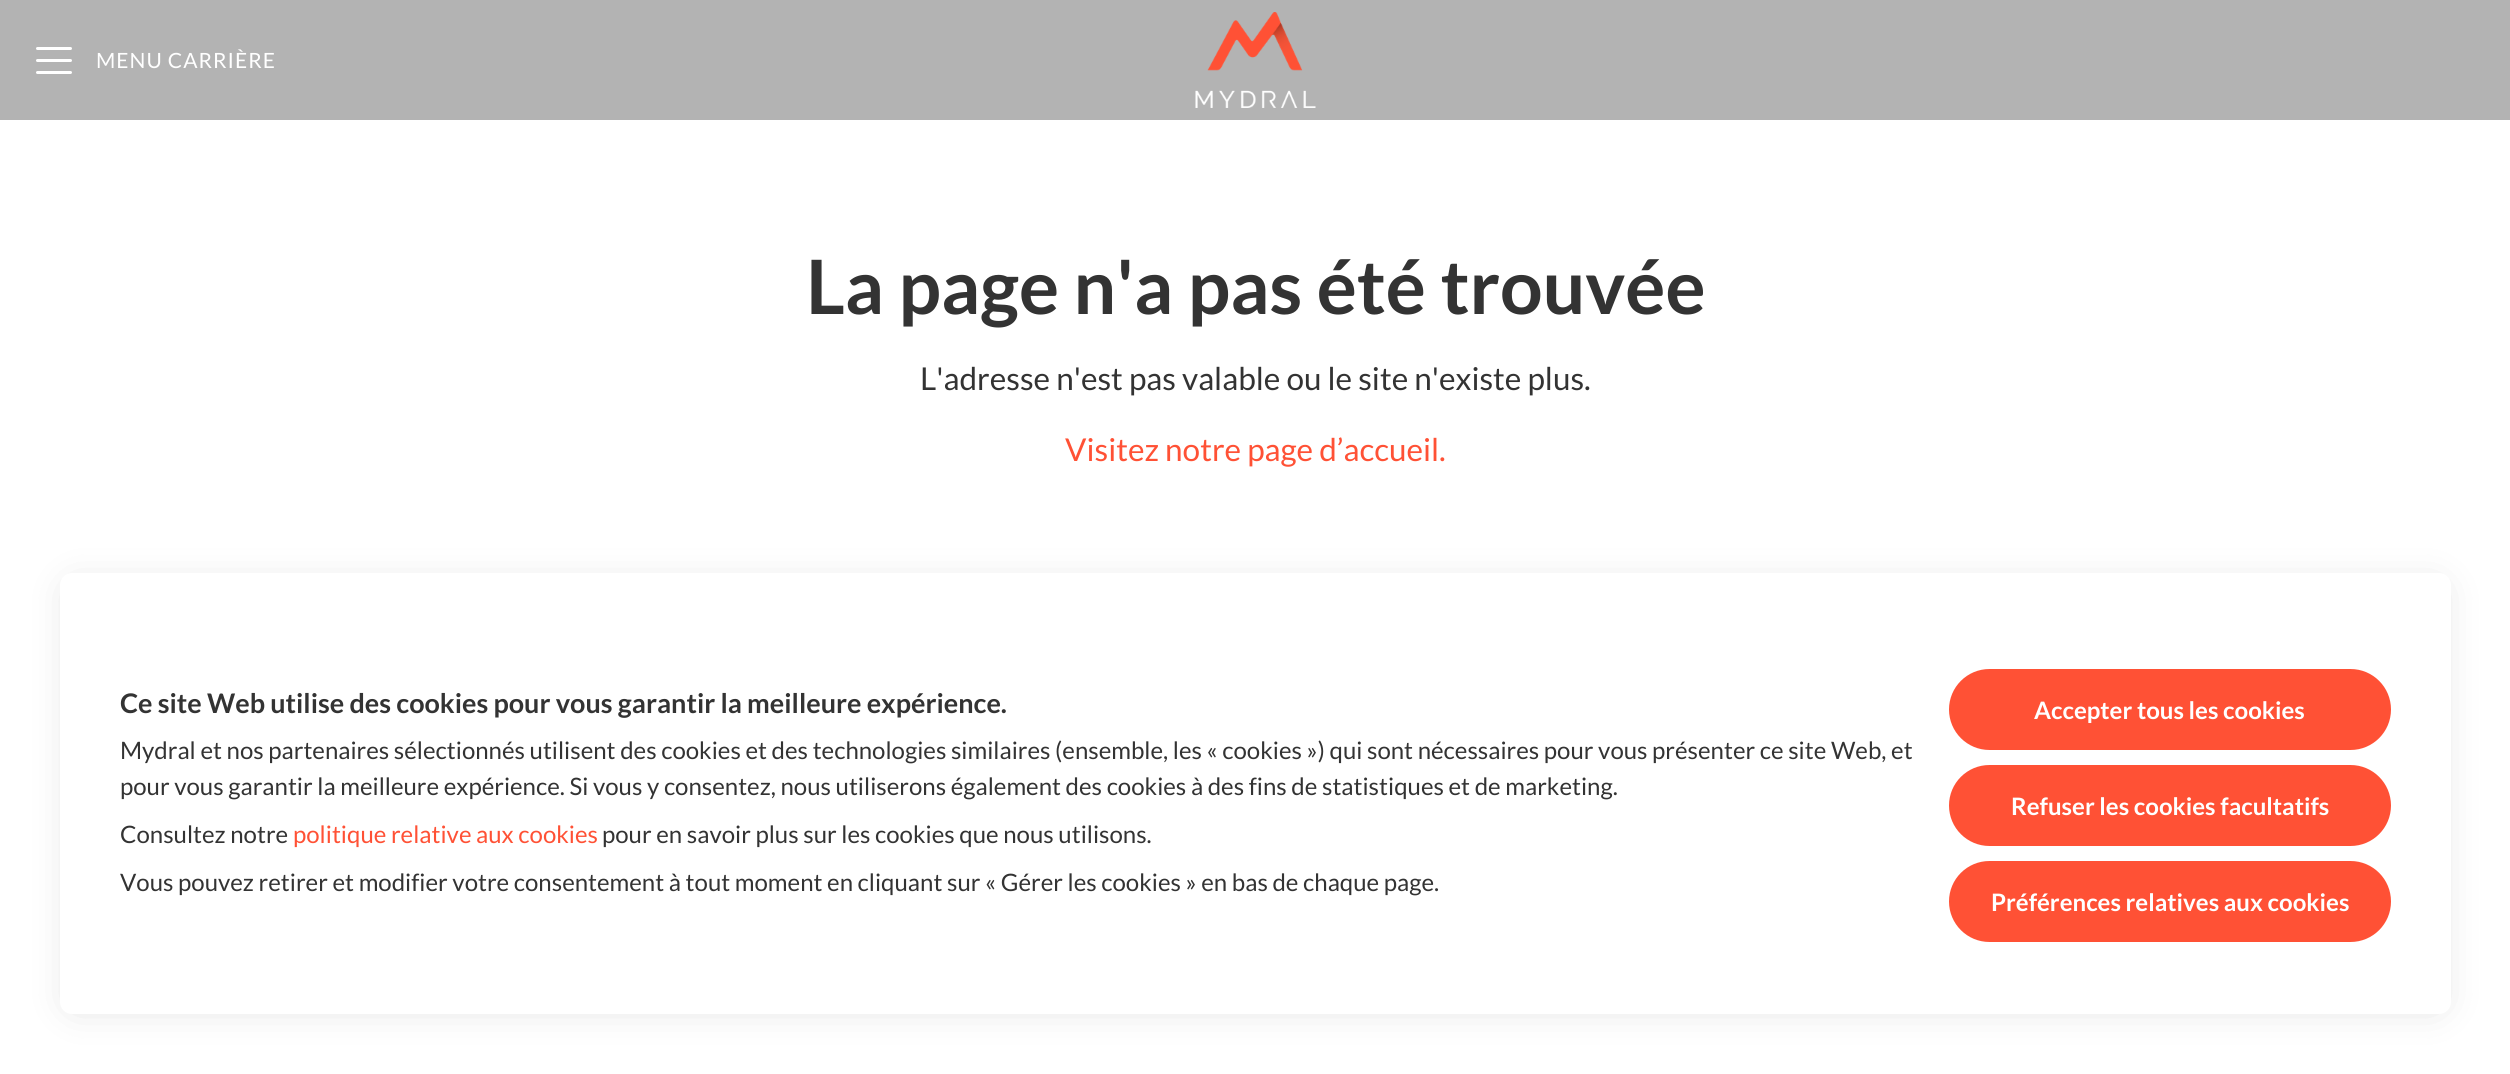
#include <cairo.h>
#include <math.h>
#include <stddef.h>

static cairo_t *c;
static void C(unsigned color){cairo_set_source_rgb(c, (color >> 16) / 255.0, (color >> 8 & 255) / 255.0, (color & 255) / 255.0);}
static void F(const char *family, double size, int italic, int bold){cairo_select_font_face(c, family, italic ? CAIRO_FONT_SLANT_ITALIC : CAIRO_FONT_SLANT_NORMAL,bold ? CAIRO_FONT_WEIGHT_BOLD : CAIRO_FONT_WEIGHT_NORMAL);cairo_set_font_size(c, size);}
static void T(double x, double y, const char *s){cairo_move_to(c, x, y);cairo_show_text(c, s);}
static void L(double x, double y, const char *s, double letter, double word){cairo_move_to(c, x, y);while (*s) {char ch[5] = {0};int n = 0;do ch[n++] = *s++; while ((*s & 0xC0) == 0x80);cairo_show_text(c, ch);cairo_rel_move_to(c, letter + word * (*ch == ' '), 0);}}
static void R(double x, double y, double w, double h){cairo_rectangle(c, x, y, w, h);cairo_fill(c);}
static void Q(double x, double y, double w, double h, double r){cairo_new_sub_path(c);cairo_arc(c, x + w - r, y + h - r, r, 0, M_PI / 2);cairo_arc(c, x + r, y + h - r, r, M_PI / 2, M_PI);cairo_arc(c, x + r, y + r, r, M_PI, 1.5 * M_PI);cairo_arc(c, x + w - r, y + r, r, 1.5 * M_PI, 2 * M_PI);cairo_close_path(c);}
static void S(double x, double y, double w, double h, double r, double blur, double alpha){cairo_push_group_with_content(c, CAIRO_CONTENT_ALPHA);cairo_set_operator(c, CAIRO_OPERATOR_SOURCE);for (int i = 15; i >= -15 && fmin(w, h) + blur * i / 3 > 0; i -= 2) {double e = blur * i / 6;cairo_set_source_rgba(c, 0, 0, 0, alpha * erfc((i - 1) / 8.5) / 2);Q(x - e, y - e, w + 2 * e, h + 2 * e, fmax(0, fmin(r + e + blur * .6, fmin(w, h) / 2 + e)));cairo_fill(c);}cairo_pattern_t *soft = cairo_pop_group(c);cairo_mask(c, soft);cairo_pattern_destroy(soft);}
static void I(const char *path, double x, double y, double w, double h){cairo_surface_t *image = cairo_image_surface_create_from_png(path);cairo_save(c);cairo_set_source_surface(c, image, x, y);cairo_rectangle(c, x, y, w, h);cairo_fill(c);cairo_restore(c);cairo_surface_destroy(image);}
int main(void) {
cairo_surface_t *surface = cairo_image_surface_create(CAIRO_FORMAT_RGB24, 2510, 1074);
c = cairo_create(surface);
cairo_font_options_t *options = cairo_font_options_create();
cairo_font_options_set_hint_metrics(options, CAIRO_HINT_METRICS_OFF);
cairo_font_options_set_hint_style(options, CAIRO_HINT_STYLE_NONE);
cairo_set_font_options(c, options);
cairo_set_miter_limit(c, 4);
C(0xffffff);
cairo_paint(c);
C(0xb3b3b3);
R(0,0,2510,120);
C(0xffffff);
Q(36,47,36,3,1.5);
cairo_fill(c);
Q(36,59,36,3,1.5);
cairo_fill(c);
Q(36,71,36,3,1.5);
cairo_fill(c);
F("Lato",21,0,0);
L(96,68,"MENU CARRIÈRE",1,0);
I("1.png",1195,12,121,96);
F("Lato",75,0,1);
C(0x333333);
T(806,314,"La page n'a pas été trouvée");
F("Lato",31.5,0,0);
T(920,390,"L'adresse n'est pas valable ou le site n'existe plus.");
C(0xff5135);
T(1065,461,"Visitez notre page d’accueil.");
C(0x000000);
S(75,591,2361,411,0,20,.18);
C(0xffffff);
Q(60,573,2391,441,12);
cairo_fill(c);
F("Lato",27,0,1);
C(0x333333);
T(120,713,"Ce site Web utilise des cookies pour vous garantir la meilleure expérience.");
F("Lato",24,0,0);
T(120,759,"Mydral et nos partenaires sélectionnés utilisent des cookies et des technologies similaires (ensemble, les « cookies ») qui sont nécessaires pour vous présenter ce site Web, et");
T(120,795,"pour vous garantir la meilleure expérience. Si vous y consentez, nous utiliserons également des cookies à des fins de statistiques et de marketing.");
T(120,843,"Consultez notre");
C(0xff5135);
T(293,843,"politique relative aux cookies");
C(0x333333);
T(602,843,"pour en savoir plus sur les cookies que nous utilisons.");
T(120,891,"Vous pouvez retirer et modifier votre consentement à tout moment en cliquant sur « Gérer les cookies » en bas de chaque page.");
C(0xff5135);
Q(1949,669,442,81,40.5);
cairo_fill(c);
F("Lato",24,0,1);
C(0xffffff);
T(2034,719,"Accepter tous les cookies");
C(0xff5135);
Q(1949,765,442,81,40.5);
cairo_fill(c);
C(0xffffff);
T(2011,815,"Refuser les cookies facultatifs");
C(0xff5135);
Q(1949,861,442,81,40.5);
cairo_fill(c);
C(0xffffff);
T(1991,911,"Préférences relatives aux cookies");
cairo_surface_write_to_png(surface, "o.png");
cairo_font_options_destroy(options);
cairo_destroy(c);
cairo_surface_destroy(surface);
return 0;
}
